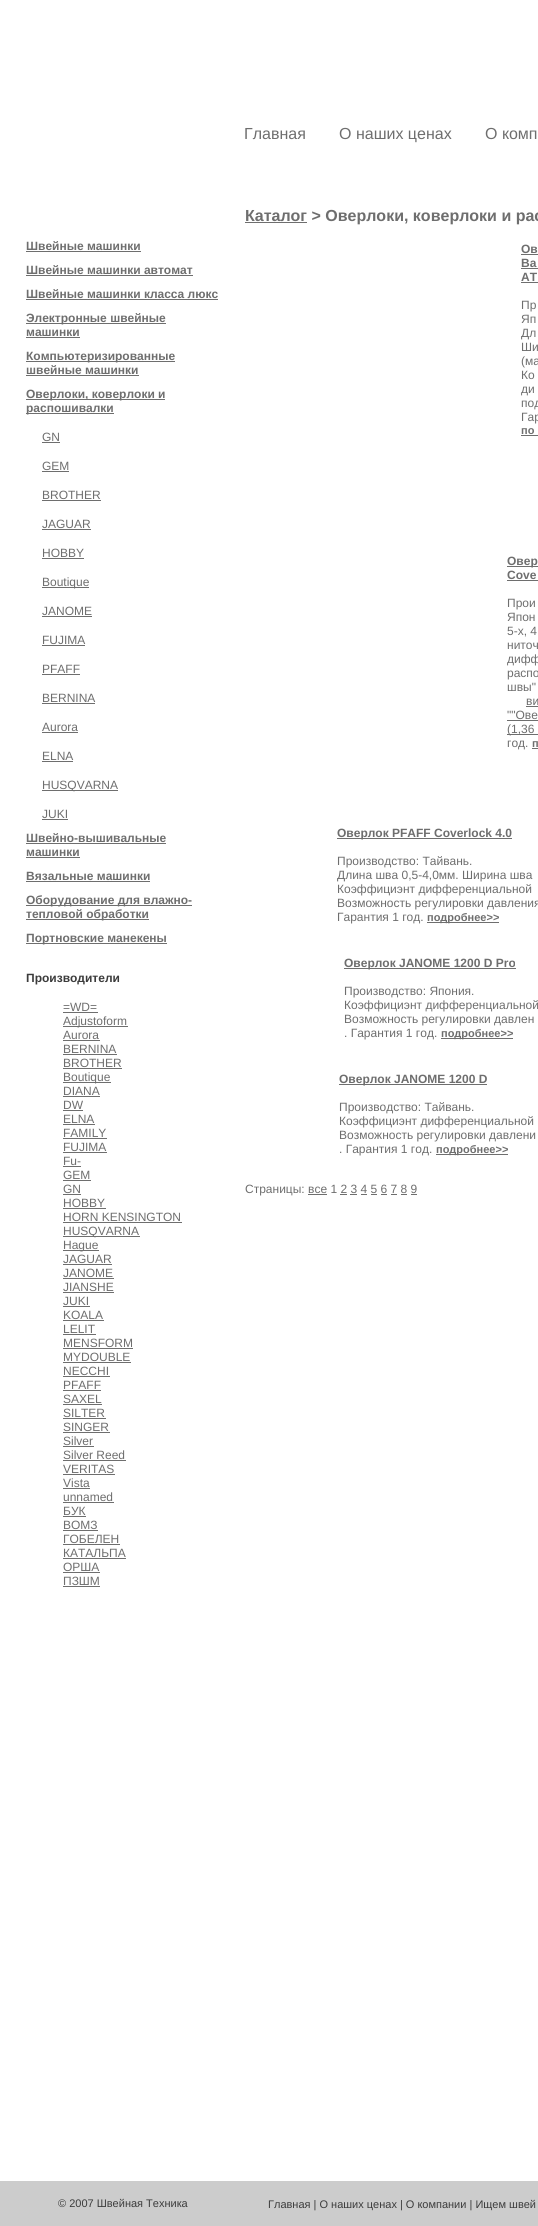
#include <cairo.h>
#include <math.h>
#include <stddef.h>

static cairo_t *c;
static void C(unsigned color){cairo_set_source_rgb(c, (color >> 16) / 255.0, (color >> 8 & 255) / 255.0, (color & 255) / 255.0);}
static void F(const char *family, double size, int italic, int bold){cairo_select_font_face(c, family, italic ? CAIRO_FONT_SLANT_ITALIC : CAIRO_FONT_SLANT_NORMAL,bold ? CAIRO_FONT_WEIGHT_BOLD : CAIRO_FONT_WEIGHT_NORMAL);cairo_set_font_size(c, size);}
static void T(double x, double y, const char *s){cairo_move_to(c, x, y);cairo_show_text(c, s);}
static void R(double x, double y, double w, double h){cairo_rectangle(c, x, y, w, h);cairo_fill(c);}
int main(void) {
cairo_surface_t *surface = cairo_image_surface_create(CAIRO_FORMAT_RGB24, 538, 2226);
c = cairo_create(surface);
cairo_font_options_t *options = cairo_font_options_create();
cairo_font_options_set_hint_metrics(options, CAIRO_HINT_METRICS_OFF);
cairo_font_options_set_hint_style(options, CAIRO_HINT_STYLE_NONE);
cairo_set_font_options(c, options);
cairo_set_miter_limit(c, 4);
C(0xffffff);
cairo_paint(c);
F("Liberation Sans",16,0,0);
C(0x6e6e6e);
T(244,139,"Главная");
T(339,139,"О наших ценах");
T(485,139,"О комп");
F("Liberation Sans",12,0,1);
T(26,250,"Швейные машинки");
R(26,251,115,1);
T(26,274,"Швейные машинки автомат");
R(26,275,167,1);
T(26,298,"Швейные машинки класса люкс");
R(26,299,192,1);
R(26,323,140,1);
T(26,322,"Электронные швейные");
T(26,336,"машинки");
R(26,337,54,1);
R(26,361,149,1);
T(26,360,"Компьютеризированные");
T(26,374,"швейные машинки");
R(26,375,113,1);
R(26,399,139,1);
T(26,398,"Оверлоки, коверлоки и");
R(26,413,88,1);
T(26,412,"распошивалки");
F("Liberation Sans",12,0,0);
T(42,441,"GN");
R(42,442,18,1);
T(42,470,"GEM");
R(42,471,27,1);
T(42,499,"BROTHER");
R(42,500,59,1);
T(42,528,"JAGUAR");
R(42,529,49,1);
T(42,557,"HOBBY");
R(42,558,42,1);
R(42,587,47,1);
T(42,586,"Boutique");
T(42,615,"JANOME");
R(42,616,50,1);
T(42,644,"FUJIMA");
R(42,645,43,1);
T(42,673,"PFAFF");
R(42,674,38,1);
T(42,702,"BERNINA");
R(42,703,53,1);
T(42,731,"Aurora");
R(42,732,36,1);
T(42,760,"ELNA");
R(42,761,31,1);
R(42,790,76,1);
T(42,789,"HUSQVARNA");
T(42,818,"JUKI");
R(42,819,26,1);
F("Liberation Sans",12,0,1);
T(26,842,"Швейно-вышивальные");
R(26,843,140,1);
T(26,856,"машинки");
R(26,857,54,1);
T(26,880,"Вязальные машинки");
R(26,881,124,1);
R(26,905,166,1);
T(26,904,"Оборудование для влажно-");
R(26,919,123,1);
T(26,918,"тепловой обработки");
R(26,943,141,1);
T(26,942,"Портновские манекены");
C(0x3c3c3c);
T(26,982,"Производители");
F("Liberation Sans",12,0,0);
C(0x6e6e6e);
T(63,1011,"=WD=");
R(63,1012,35,1);
R(63,1026,65,1);
T(63,1025,"Adjustoform");
T(63,1039,"Aurora");
R(63,1040,37,1);
T(63,1053,"BERNINA");
R(63,1054,54,1);
T(63,1067,"BROTHER");
R(63,1068,59,1);
R(63,1082,48,1);
T(63,1081,"Boutique");
T(63,1095,"DIANA");
R(63,1096,37,1);
T(63,1109,"DW");
R(63,1110,20,1);
T(63,1123,"ELNA");
R(63,1124,32,1);
T(63,1137,"FAMILY");
R(63,1138,44,1);
T(63,1151,"FUJIMA");
R(63,1152,44,1);
T(63,1165,"Fu-");
R(63,1166,18,1);
T(63,1179,"GEM");
R(63,1180,28,1);
T(63,1193,"GN");
R(63,1194,18,1);
T(63,1207,"HOBBY");
R(63,1208,43,1);
T(63,1221,"HORN KENSINGTON");
R(63,1222,119,1);
R(63,1236,77,1);
T(63,1235,"HUSQVARNA");
R(63,1250,36,1);
T(63,1249,"Hague");
T(63,1263,"JAGUAR");
R(63,1264,49,1);
T(63,1277,"JANOME");
R(63,1278,51,1);
T(63,1291,"JIANSHE");
R(63,1292,51,1);
T(63,1305,"JUKI");
R(63,1306,27,1);
T(63,1319,"KOALA");
R(63,1320,41,1);
T(63,1333,"LELIT");
R(63,1334,33,1);
T(63,1347,"MENSFORM");
R(63,1348,70,1);
T(63,1361,"MYDOUBLE");
R(63,1362,68,1);
T(63,1375,"NECCHI");
R(63,1376,47,1);
T(63,1389,"PFAFF");
R(63,1390,38,1);
T(63,1403,"SAXEL");
R(63,1404,39,1);
T(63,1417,"SILTER");
R(63,1418,43,1);
T(63,1431,"SINGER");
R(63,1432,47,1);
T(63,1445,"Silver");
R(63,1446,31,1);
T(63,1459,"Silver Reed");
R(63,1460,63,1);
T(63,1473,"VERITAS");
R(63,1474,52,1);
T(63,1487,"Vista");
R(63,1488,27,1);
T(63,1501,"unnamed");
R(63,1502,51,1);
T(63,1515,"БУК");
R(63,1516,23,1);
T(63,1529,"ВОМЗ");
R(63,1530,35,1);
T(63,1543,"ГОБЕЛЕН");
R(63,1544,57,1);
T(63,1557,"КАТАЛЬПА");
R(63,1558,63,1);
T(63,1571,"ОРША");
R(63,1572,37,1);
T(63,1585,"ПЗШМ");
R(63,1586,37,1);
R(245,222,62,1);
F("Liberation Sans",16,0,1);
T(245,221,"Каталог > Оверлоки, коверлоки и рас");
F("Liberation Sans",12,0,1);
T(521,253,"Ов");
R(521,254,17,1);
T(521,267,"Ba");
R(521,268,17,1);
T(521,281,"AT");
R(521,282,17,1);
F("Liberation Sans",12,0,0);
T(521,309,"Пр");
T(521,323,"Яп");
T(521,337,"Дл");
T(521,351,"Ши");
T(521,365,"(ма");
T(521,379,"Ко");
T(521,393,"ди");
T(521,407,"под");
T(521,421,"Гар");
F("Liberation Sans",11,0,1);
T(521,434,"по");
R(521,435,17,1);
R(507,566,31,1);
F("Liberation Sans",12,0,1);
T(507,565,"Овер");
T(507,579,"Cove");
R(507,580,31,1);
F("Liberation Sans",12,0,0);
T(507,607,"Прои");
T(507,621,"Япон");
T(507,635,"5-х, 4");
T(507,649,"ниточ");
T(507,663,"дифф");
T(507,677,"распо");
T(507,691,"швы\"");
T(526,705,"ви");
R(526,706,12,1);
T(507,719,"\"\"Ове");
R(507,720,31,1);
R(507,734,31,1);
T(507,733,"(1,36");
T(507,747,"год.");
F("Liberation Sans",11,0,1);
T(532,747,"п");
R(532,748,6,1);
R(337,838,175,1);
F("Liberation Sans",12,0,1);
T(337,837,"Оверлок PFAFF Coverlock 4.0");
F("Liberation Sans",12,0,0);
T(337,865,"Производство: Тайвань.");
T(337,879,"Длина шва 0,5-4,0мм. Ширина шва");
T(337,893,"Коэффициэнт дифференциальной");
T(337,907,"Возможность регулировки давления");
T(337,921,"Гарантия 1 год.");
R(427,922,72,1);
F("Liberation Sans",11,0,1);
T(427,921,"подробнее>>");
R(344,968,172,1);
F("Liberation Sans",12,0,1);
T(344,967,"Оверлок JANOME 1200 D Pro");
F("Liberation Sans",12,0,0);
T(344,995,"Производство: Япония.");
T(344,1009,"Коэффициэнт дифференциальной");
T(344,1023,"Возможность регулировки давлен");
T(344,1037,". Гарантия 1 год.");
R(441,1038,72,1);
F("Liberation Sans",11,0,1);
T(441,1037,"подробнее>>");
R(339,1084,148,1);
F("Liberation Sans",12,0,1);
T(339,1083,"Оверлок JANOME 1200 D");
F("Liberation Sans",12,0,0);
T(339,1111,"Производство: Тайвань.");
T(339,1125,"Коэффициэнт дифференциальной");
T(339,1139,"Возможность регулировки давлени");
T(339,1153,". Гарантия 1 год.");
R(436,1154,72,1);
F("Liberation Sans",11,0,1);
T(436,1153,"подробнее>>");
F("Liberation Sans",12,0,0);
T(245,1193,"Страницы: все 1 2 3 4 5 6 7 8 9");
R(308,1194,19,1);
R(340,1194,7,1);
R(350,1194,7,1);
R(361,1194,6,1);
R(371,1194,6,1);
R(381,1194,6,1);
R(391,1194,6,1);
R(401,1194,6,1);
R(411,1194,6,1);
C(0xcccccc);
R(0,2181,538,45);
F("Liberation Sans",11,0,0);
C(0x3c3c3c);
T(58,2207,"© 2007 Швейная Техника");
T(268,2208,"Главная | О наших ценах | О компании | Ищем швей");
cairo_surface_write_to_png(surface, "o.png");
cairo_font_options_destroy(options);
cairo_destroy(c);
cairo_surface_destroy(surface);
return 0;
}
